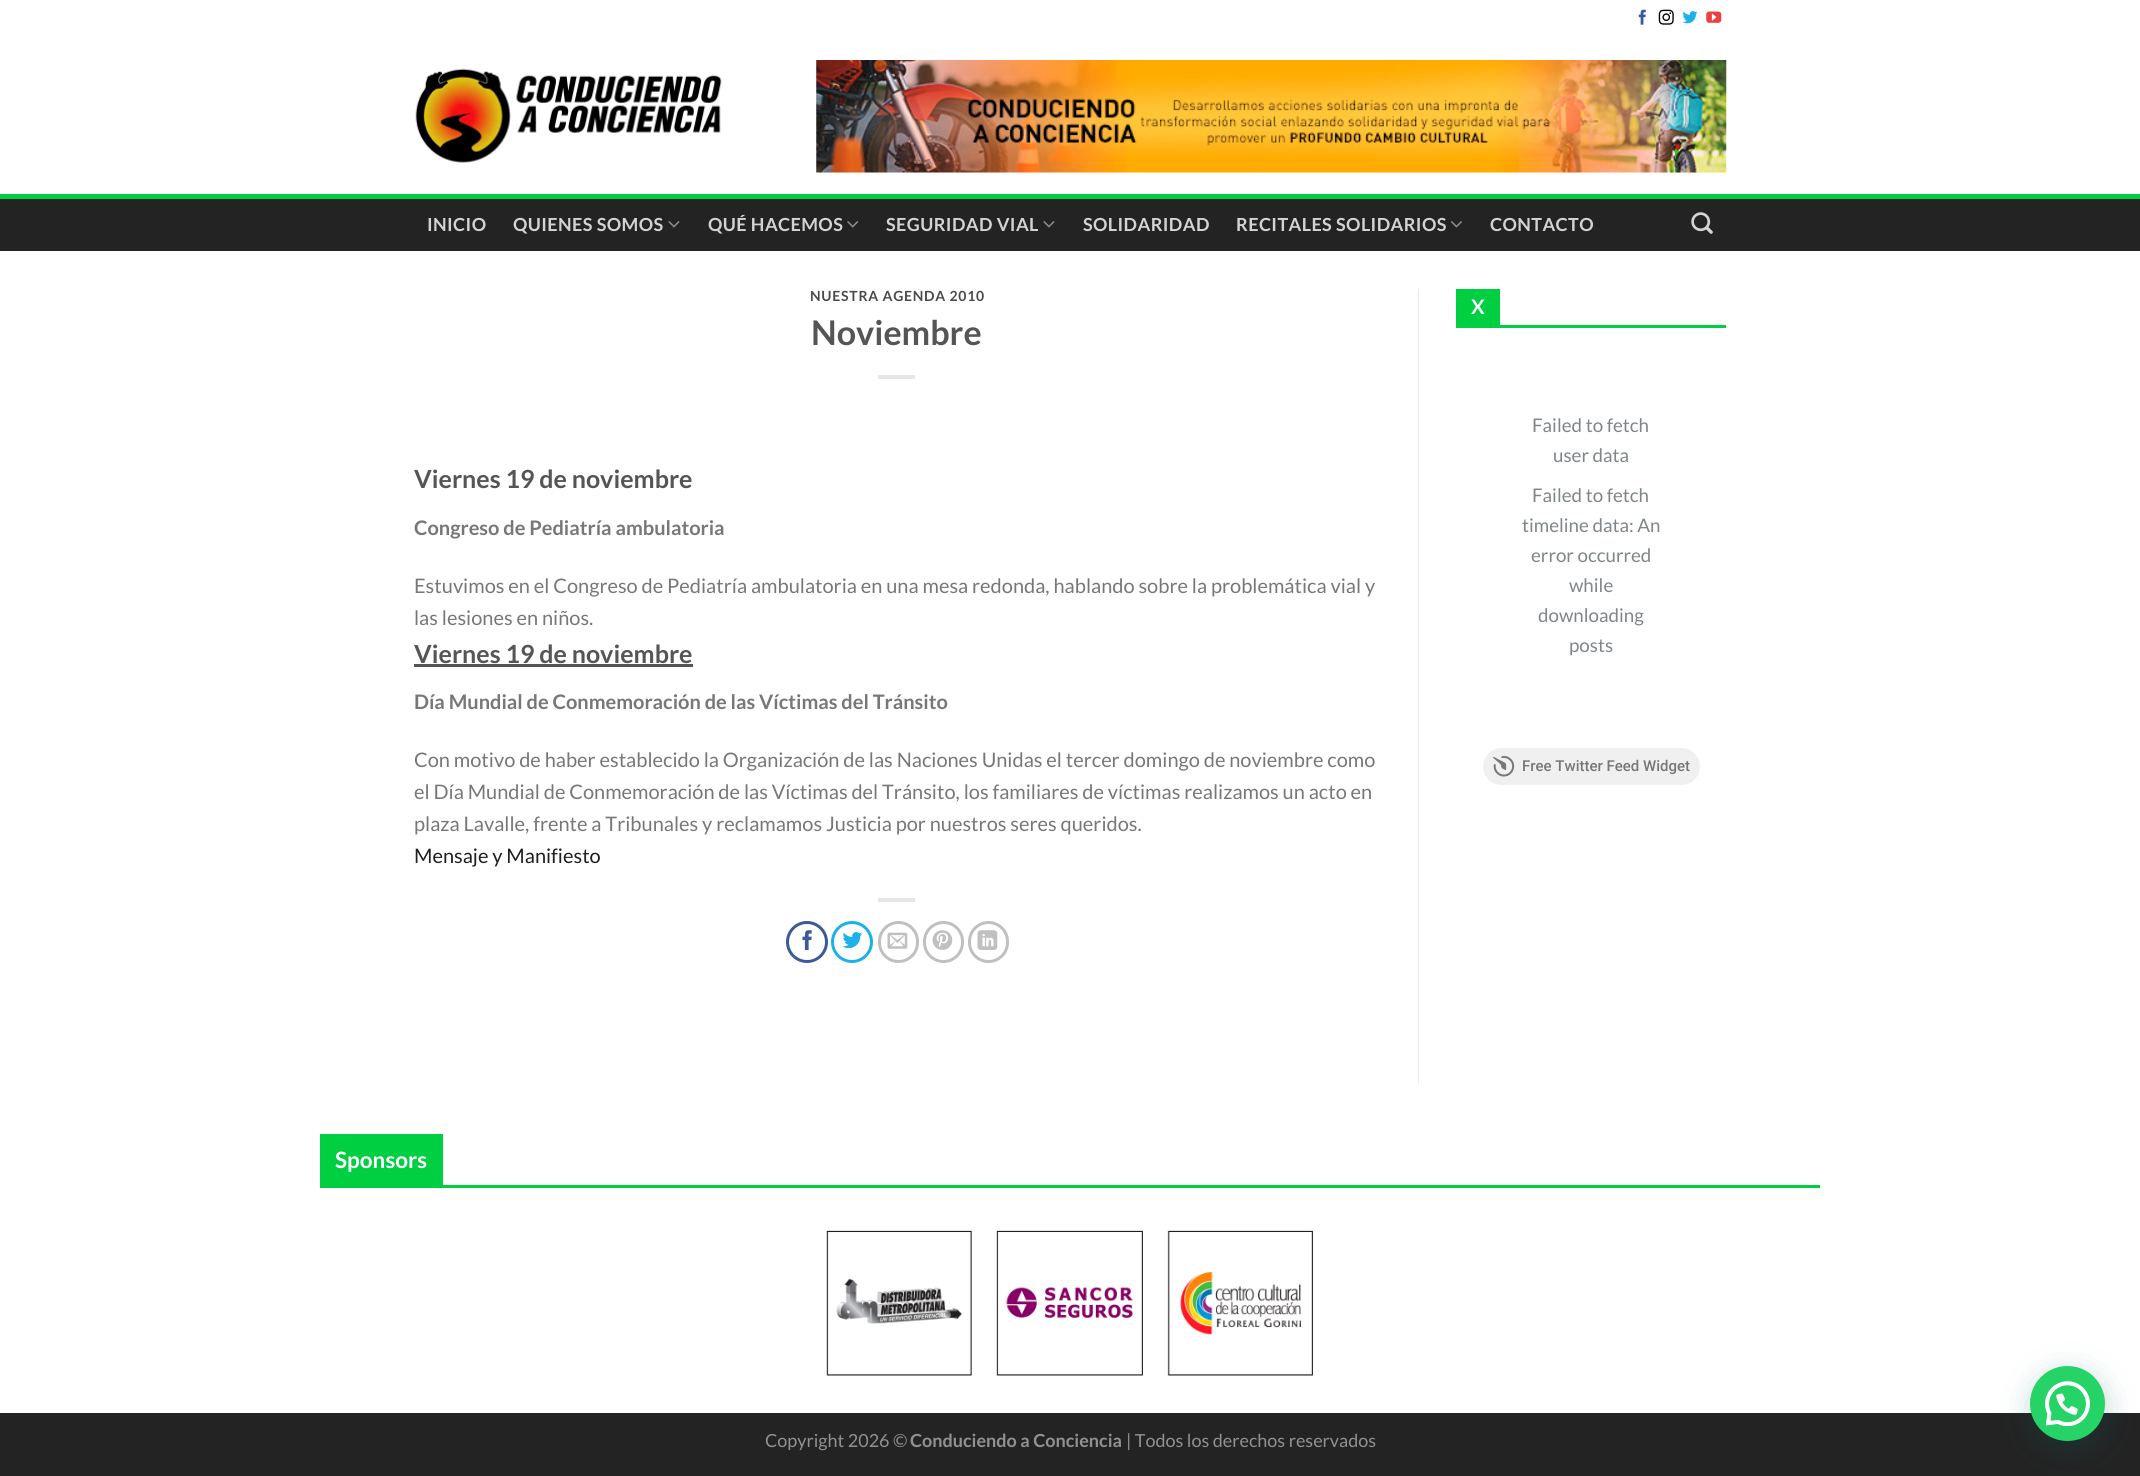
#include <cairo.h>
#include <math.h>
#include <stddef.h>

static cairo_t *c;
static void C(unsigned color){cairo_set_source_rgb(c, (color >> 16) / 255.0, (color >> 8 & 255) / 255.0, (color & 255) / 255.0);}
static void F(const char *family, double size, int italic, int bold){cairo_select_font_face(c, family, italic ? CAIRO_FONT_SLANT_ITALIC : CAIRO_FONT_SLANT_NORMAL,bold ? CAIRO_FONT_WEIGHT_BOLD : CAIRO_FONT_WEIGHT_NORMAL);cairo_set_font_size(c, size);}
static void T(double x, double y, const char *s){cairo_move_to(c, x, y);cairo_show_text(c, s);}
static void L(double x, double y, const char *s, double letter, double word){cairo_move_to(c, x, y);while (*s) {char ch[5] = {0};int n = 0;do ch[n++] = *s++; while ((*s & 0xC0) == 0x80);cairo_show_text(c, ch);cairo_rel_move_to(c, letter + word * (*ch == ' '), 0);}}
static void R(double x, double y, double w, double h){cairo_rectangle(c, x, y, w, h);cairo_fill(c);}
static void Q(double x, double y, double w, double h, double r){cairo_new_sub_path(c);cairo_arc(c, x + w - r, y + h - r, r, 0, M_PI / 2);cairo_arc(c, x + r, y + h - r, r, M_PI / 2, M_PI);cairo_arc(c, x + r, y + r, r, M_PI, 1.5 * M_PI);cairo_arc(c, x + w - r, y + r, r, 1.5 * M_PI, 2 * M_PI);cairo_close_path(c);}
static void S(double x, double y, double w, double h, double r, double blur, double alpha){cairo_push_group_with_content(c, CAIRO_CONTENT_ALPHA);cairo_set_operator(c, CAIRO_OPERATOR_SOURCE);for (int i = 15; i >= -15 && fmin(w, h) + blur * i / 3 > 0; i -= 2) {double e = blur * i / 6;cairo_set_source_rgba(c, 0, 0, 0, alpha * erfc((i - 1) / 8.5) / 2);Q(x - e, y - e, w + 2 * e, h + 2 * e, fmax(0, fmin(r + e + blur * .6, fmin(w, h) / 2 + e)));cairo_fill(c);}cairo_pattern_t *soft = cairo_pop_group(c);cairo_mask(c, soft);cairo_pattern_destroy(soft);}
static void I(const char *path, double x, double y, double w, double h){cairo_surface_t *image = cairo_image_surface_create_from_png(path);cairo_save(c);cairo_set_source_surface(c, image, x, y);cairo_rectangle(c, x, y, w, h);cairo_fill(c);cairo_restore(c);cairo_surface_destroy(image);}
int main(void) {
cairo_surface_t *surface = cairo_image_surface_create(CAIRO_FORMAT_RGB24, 2140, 1476);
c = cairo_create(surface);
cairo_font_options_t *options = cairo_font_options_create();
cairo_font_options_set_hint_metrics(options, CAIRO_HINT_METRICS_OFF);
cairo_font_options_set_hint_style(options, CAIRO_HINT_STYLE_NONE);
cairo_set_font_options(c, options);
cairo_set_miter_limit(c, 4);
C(0x232323);
cairo_paint(c);
C(0xffffff);
R(0,0,2140,1413);
I("1.png",1638,9,8,16);
I("2.png",1658,9,16,16);
I("3.png",1682,11,16,13);
I("4.png",1706,11,16,12);
I("5.png",415,68,307,95);
I("6.png",816,60,911,113);
C(0x232323);
R(0,199,2140,52);
C(0x00cf41);
R(0,194,2140,5);
F("Lato",18,0,1);
C(0xd3d3d3);
L(427,231,"INICIO",.4,0);
L(513,231,"QUIENES SOMOS",.4,0);
I("7.png",668,221,12,7);
L(708,231,"QUÉ HACEMOS",.4,0);
I("8.png",847,221,12,7);
L(886,231,"SEGURIDAD VIAL",.4,0);
I("7.png",1043,221,12,7);
L(1083,231,"SOLIDARIDAD",.4,0);
L(1236,231,"RECITALES SOLIDARIOS",.4,0);
I("9.png",1451,221,11,7);
L(1490,231,"CONTACTO",.4,0);
I("10.png",1691,212,22,22);
F("Lato",14,0,1);
C(0x4b4b4b);
L(810,301,"NUESTRA AGENDA 2010",.75,0);
F("Lato",34,0,1);
C(0x555555);
T(811,345,"Noviembre");
C(0xe6e6e6);
R(878,375,37,4);
F("Lato",25,0,1);
C(0x555555);
T(414,488,"Viernes 19 de noviembre");
F("Lato",20,0,1);
C(0x777777);
T(414,535,"Congreso de Pediatría ambulatoria");
F("Lato",20,0,0);
T(414,593,"Estuvimos en el Congreso de Pediatría ambulatoria en una mesa redonda, hablando sobre la problemática vial y");
T(414,625,"las lesiones en niños.");
F("Lato",25,0,1);
C(0x555555);
T(414,663,"Viernes 19 de noviembre");
R(414,664,279,3);
F("Lato",20,0,1);
C(0x777777);
T(414,709,"Día Mundial de Conmemoración de las Víctimas del Tránsito");
F("Lato",20,0,0);
T(414,767,"Con motivo de haber establecido la Organización de las Naciones Unidas el tercer domingo de noviembre como");
T(414,799,"el Día Mundial de Conmemoración de las Víctimas del Tránsito, los familiares de víctimas realizamos un acto en");
T(414,831,"plaza Lavalle, frente a Tribunales y reclamamos Justicia por nuestros seres queridos.");
C(0x1e1e1e);
T(414,863,"Mensaje y Manifiesto");
C(0xe6e6e6);
R(878,898,37,4);
cairo_new_path(c);
cairo_arc(c,807,942,19.5,0,2 * M_PI);
C(0x3b5a9b);
cairo_set_line_width(c,3);
cairo_stroke(c);
I("11.png",802,930,10,20);
cairo_arc(c,852,942,19.5,0,2 * M_PI);
C(0x1bb2e9);
cairo_stroke(c);
I("12.png",842,932,21,17);
Q(879.5,922.5,38,39,19);
C(0xc0c0c0);
cairo_stroke(c);
I("13.png",887,932,21,17);
Q(924.5,922.5,38,39,19);
cairo_stroke(c);
I("14.png",932,930,21,20);
Q(969.5,922.5,38,39,19);
cairo_stroke(c);
I("15.png",977,930,21,20);
C(0xececec);
R(1418,289,1,795);
C(0x00cf41);
R(1456,325,270,3);
R(1456,289,44,36);
F("Lato",20,0,1);
C(0xffffff);
L(1471,314,"X",1,0);
F("Lato",18.75,0,0);
C(0x7f8588);
T(1532,432,"Failed to fetch");
T(1553,462,"user data");
T(1532,502,"Failed to fetch");
T(1522,532,"timeline data: An");
T(1531,562,"error occurred");
T(1569,592,"while");
T(1538,622,"downloading");
T(1569,652,"posts");
C(0xf0f0f0);
Q(1483,748,217,37,18.5);
cairo_fill(c);
I("16.png",1493,756,22,21);
F("Roboto Medium",15,0,0);
C(0x777777);
T(1522,771,"Free Twitter Feed Widget");
C(0x00cf41);
R(320,1185,1500,3);
R(320,1134,123,51);
F("Lato",22.5,0,1);
C(0xffffff);
T(335,1168,"Sponsors");
I("17.png",826,1230,146,146);
I("18.png",996,1230,147,146);
I("19.png",1167,1230,146,146);
F("Lato",18,0,0);
C(0x919191);
T(765,1447,"Copyright 2026 ©");
F("Lato",18,0,1);
T(910,1447,"Conduciendo a Conciencia");
F("Lato",18,0,0);
T(1126,1447,"| Todos los derechos reservados");
C(0x075e54);
S(2031,1374,75,75,37.5,15,.24);
C(0x25d366);
cairo_arc(c,2067.5,1403.5,37.5,0,2 * M_PI);
cairo_fill(c);
I("20.png",2045,1381,45,45);
cairo_surface_write_to_png(surface, "o.png");
cairo_font_options_destroy(options);
cairo_destroy(c);
cairo_surface_destroy(surface);
return 0;
}
